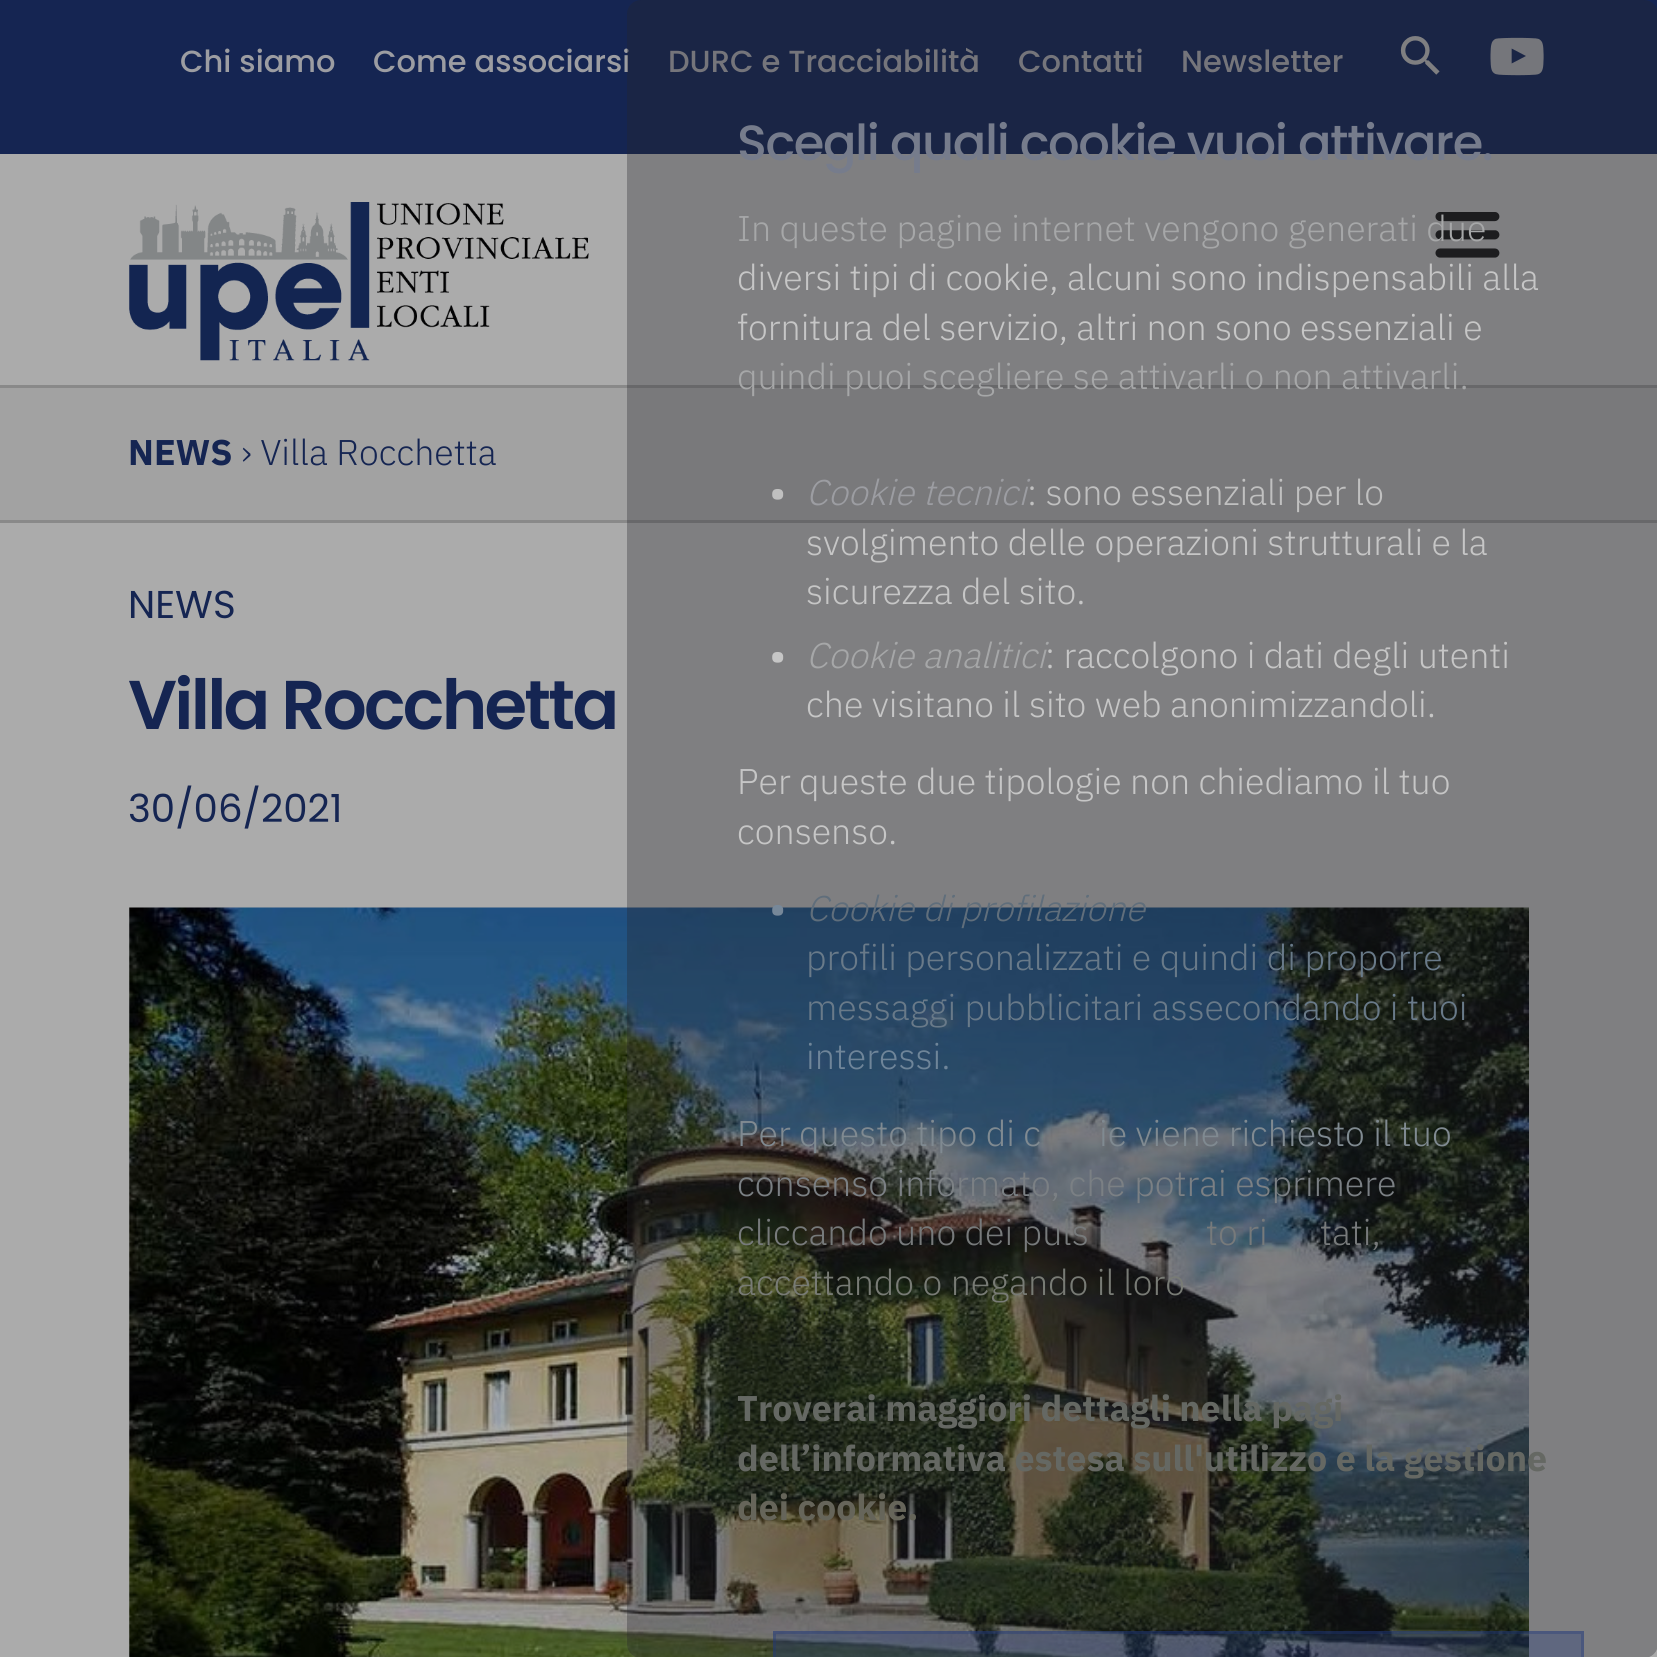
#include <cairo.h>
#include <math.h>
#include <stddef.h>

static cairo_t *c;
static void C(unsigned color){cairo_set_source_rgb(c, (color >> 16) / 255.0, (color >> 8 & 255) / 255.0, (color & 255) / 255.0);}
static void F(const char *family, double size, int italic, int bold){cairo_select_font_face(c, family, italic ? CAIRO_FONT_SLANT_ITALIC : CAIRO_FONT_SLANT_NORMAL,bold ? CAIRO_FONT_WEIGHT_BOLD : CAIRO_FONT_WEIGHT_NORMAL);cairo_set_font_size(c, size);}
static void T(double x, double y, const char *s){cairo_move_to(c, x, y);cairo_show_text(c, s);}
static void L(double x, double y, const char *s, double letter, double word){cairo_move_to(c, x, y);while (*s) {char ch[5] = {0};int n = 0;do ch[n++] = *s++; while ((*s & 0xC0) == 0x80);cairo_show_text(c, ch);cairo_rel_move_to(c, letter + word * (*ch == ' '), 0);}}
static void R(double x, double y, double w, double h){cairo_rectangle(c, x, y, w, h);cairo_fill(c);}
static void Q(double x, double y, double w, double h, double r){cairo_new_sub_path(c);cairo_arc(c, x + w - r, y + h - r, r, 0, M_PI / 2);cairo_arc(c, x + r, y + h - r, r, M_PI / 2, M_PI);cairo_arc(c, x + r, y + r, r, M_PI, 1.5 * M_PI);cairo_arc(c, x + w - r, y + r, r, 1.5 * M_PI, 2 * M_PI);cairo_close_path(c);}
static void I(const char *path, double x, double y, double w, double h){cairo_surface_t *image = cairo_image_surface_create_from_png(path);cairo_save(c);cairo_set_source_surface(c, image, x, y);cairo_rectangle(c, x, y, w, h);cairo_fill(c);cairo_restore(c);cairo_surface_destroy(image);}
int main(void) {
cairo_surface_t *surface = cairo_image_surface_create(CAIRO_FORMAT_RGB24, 1657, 1657);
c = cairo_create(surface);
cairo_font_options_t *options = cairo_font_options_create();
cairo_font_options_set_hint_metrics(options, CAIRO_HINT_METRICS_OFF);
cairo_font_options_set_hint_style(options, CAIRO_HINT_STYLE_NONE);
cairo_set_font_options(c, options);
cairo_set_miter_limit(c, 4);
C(0xababab);
cairo_paint(c);
C(0x152552);
R(0,0,1657,154);
F("Poppins Medium",30.5,0,0);
C(0x9c9da2);
T(180,72,"Chi siamo");
T(373,72,"Come associarsi");
T(668,72,"DURC e Tracciabilità");
T(1018,72,"Contatti");
T(1181,72,"Newsletter");
I("1.png",1400,36,40,39);
I("2.png",1490,37,54,39);
I("4.png",1435,212,65,46);
C(0xa2a2a2);
R(0,388,1657,132);
C(0x898989);
R(0,385,1657,3);
R(0,520,1657,3);
I("5.png",129,907,1400,750);
cairo_set_source_rgba(c,0.145,0.153,0.173,0.33);
Q(627,0,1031,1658,14);
cairo_fill(c);
F("Poppins Medium",49.5,0,0);
C(0x767c8c);
L(737,160,"Scegli quali cookie vuoi attivare.",-1.4,0);
F("IBM Plex Sans Light",35.75,0,0);
C(0xa6a7a8);
T(737,241,"In queste pagine internet vengono generati due");
C(0xc6c6c6);
T(737,290,"diversi tipi di cookie, alcuni sono indispensabili alla");
T(737,340,"fornitura del servizio, altri non sono essenziali e");
C(0xa6a7a8);
T(737,389,"quindi puoi scegliere se attivarli o non attivarli.");
F("IBM Plex Sans",35.75,0,1);
C(0xc0c0c0);
T(770,505,"•");
F("IBM Plex Sans Light",35.75,1,0);
C(0x9c9da2);
T(806,505,"Cookie tecnici");
F("IBM Plex Sans Light",35.75,0,0);
C(0xc0c0c0);
T(1027,505,": sono essenziali per lo");
C(0xc6c6c6);
T(806,555,"svolgimento delle operazioni strutturali e la");
T(806,604,"sicurezza del sito.");
F("IBM Plex Sans",35.75,0,1);
T(770,668,"•");
F("IBM Plex Sans Light",35.75,1,0);
C(0xa6a7a8);
T(806,668,"Cookie analitici");
F("IBM Plex Sans Light",35.75,0,0);
C(0xc6c6c6);
T(1045,668,": raccolgono i dati degli utenti");
T(806,717,"che visitano il sito web anonimizzandoli.");
T(737,794,"Per queste due tipologie non chiediamo il tuo");
T(737,844,"consenso.");
F("IBM Plex Sans",35.75,0,1);
C(0x778899);
T(770,921,"•");
F("IBM Plex Sans Light",35.75,1,0);
C(0x606e7b);
T(806,921,"Cookie di profilazione");
F("IBM Plex Sans Light",35.75,0,0);
C(0x697a89);
T(806,970,"profili personalizzati e quindi di proporre");
T(806,1020,"messaggi pubblicitari assecondando i tuoi");
C(0x6f8599);
T(806,1069,"interessi.");
C(0x808a91);
T(737,1146,"Per questo tipo di c");
T(1099,1146,"ie viene richiesto il tuo");
C(0x7b8084);
T(737,1196,"consenso informato, che potrai esprimere");
C(0x777a7b);
T(737,1245,"cliccando uno dei puls");
T(1206,1245,"to ri");
T(1320,1245,"tati,");
C(0x787b75);
T(737,1295,"accettando o negando il loro");
F("IBM Plex Sans",35.75,0,1);
C(0x656863);
T(737,1421,"Troverai maggiori dettagli nella pagi");
T(737,1471,"dell’informativa estesa sull'utilizzo e la gestione");
C(0x66655a);
T(737,1520,"dei cookie.");
cairo_set_source_rgba(c,0.125,0.216,0.478,0.33);
R(773,1631,811,26);
cairo_new_path(c);
cairo_move_to(c,773,1631);
cairo_line_to(c,773,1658);
cairo_line_to(c,776,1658);
cairo_line_to(c,776,1634);
cairo_line_to(c,1581,1634);
cairo_line_to(c,1581,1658);
cairo_line_to(c,1584,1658);
cairo_line_to(c,1584,1631);
cairo_close_path(c);
cairo_fill(c);
I("3.png",129,202,460,159);
C(0x152552);
T(128,465,"NEWS");
F("IBM Plex Sans Light",35.75,0,0);
T(241,465,"› Villa Rocchetta");
F("Poppins",38.75,0,0);
T(128,618,"NEWS");
F("Poppins SemiBold",69,0,0);
L(128,729,"Villa Rocchetta",-2.75,0);
F("Poppins",38.75,0,0);
T(128,822,"30/06/2021");
cairo_surface_write_to_png(surface, "o.png");
cairo_font_options_destroy(options);
cairo_destroy(c);
cairo_surface_destroy(surface);
return 0;
}
